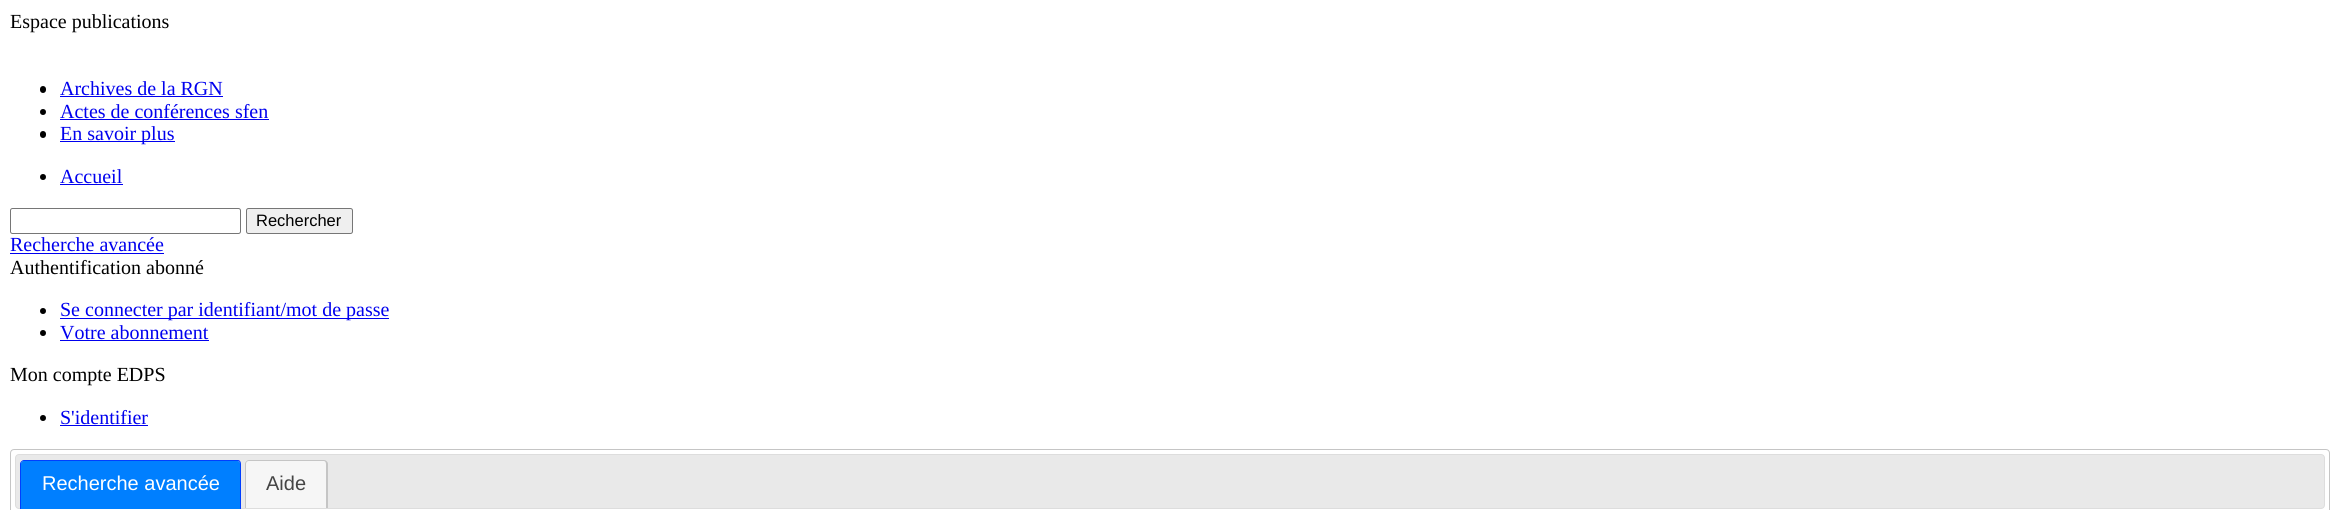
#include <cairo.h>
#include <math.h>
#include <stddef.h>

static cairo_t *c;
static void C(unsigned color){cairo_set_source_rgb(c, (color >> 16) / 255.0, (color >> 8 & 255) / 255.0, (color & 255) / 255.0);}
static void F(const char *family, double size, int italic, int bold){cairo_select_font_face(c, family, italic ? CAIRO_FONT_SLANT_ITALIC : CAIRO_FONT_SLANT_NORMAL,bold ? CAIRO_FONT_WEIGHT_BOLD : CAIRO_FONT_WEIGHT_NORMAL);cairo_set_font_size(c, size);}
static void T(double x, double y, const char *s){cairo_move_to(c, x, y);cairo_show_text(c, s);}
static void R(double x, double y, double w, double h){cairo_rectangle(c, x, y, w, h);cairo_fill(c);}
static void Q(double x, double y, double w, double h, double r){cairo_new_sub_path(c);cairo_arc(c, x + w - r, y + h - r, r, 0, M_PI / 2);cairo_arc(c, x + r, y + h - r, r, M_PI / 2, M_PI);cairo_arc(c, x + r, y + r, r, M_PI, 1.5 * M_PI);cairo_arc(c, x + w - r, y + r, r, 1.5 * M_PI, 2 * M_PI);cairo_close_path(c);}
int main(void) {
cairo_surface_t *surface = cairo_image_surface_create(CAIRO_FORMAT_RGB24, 2340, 510);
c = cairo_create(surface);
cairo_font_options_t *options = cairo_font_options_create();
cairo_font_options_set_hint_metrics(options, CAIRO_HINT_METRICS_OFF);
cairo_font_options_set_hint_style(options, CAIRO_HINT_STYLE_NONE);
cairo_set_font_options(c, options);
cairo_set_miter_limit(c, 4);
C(0xffffff);
cairo_paint(c);
F("Liberation Serif",20,0,0);
C(0x000000);
T(10,28,"Espace publications");
Q(40,86,6,7,3);
cairo_fill(c);
C(0x0000ee);
T(60,95,"Archives de la RGN");
R(60,96,163,1);
C(0x000000);
cairo_new_path(c);
cairo_arc(c,43,112,3,0,2 * M_PI);
cairo_fill(c);
C(0x0000ee);
T(60,118,"Actes de conférences sfen");
R(60,119,209,1);
C(0x000000);
Q(40,131,6,7,3);
cairo_fill(c);
C(0x0000ee);
R(60,141,115,1);
T(60,140,"En savoir plus");
C(0x000000);
cairo_new_path(c);
cairo_arc(c,43,177,3,0,2 * M_PI);
cairo_fill(c);
C(0x0000ee);
T(60,183,"Accueil");
R(60,184,63,1);
Q(10.5,208.5,230,25,2);
C(0x767676);
cairo_set_line_width(c,1);
cairo_stroke(c);
C(0xefefef);
Q(246.5,208.5,106,25,2);
cairo_fill_preserve(c);
C(0x767676);
cairo_stroke(c);
F("Liberation Sans",16.5,0,0);
C(0x000000);
T(256,226,"Rechercher");
F("Liberation Serif",20,0,0);
C(0x0000ee);
T(10,251,"Recherche avancée");
R(10,253,154,1);
C(0x000000);
T(10,274,"Authentification abonné");
cairo_new_path(c);
cairo_arc(c,43,311,3,0,2 * M_PI);
cairo_fill(c);
C(0x0000ee);
R(60,318,329,1);
T(60,316,"Se connecter par identifiant/mot de passe");
C(0x000000);
cairo_new_path(c);
cairo_arc(c,43,333,3,0,2 * M_PI);
cairo_fill(c);
C(0x0000ee);
T(60,339,"Votre abonnement");
R(60,340,149,1);
C(0x000000);
T(10,381,"Mon compte EDPS");
cairo_new_path(c);
cairo_arc(c,43,418,3,0,2 * M_PI);
cairo_fill(c);
C(0x0000ee);
T(60,424,"S'identifier");
R(60,425,88,1);
Q(10.5,449.5,2319,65,3.5);
C(0xc5c5c5);
cairo_stroke(c);
C(0xe9e9e9);
Q(15.5,454.5,2309,54,3.5);
cairo_fill_preserve(c);
C(0xdddddd);
cairo_stroke(c);
C(0x007fff);
cairo_new_path(c);
cairo_move_to(c,23.5,461);
cairo_line_to(c,237.5,461);
cairo_curve_to(c,239,461,240,462,240,463.5);
cairo_line_to(c,240,509);
cairo_line_to(c,21,509);
cairo_line_to(c,21,463.5);
cairo_curve_to(c,21,462,22,461,23.5,461);
cairo_close_path(c);
cairo_fill(c);
C(0x003eff);
cairo_set_fill_rule(c,CAIRO_FILL_RULE_EVEN_ODD);
cairo_new_path(c);
cairo_move_to(c,24,460);
cairo_line_to(c,238,460);
cairo_curve_to(c,240,460,241,462,241,464);
cairo_line_to(c,241,509);
cairo_line_to(c,20,509);
cairo_line_to(c,20,464);
cairo_curve_to(c,20,462,22,460,24,460);
cairo_close_path(c);
cairo_move_to(c,24,461);
cairo_line_to(c,238,461);
cairo_curve_to(c,239,461,240,462,240,464);
cairo_line_to(c,240,509);
cairo_line_to(c,21,509);
cairo_line_to(c,21,464);
cairo_curve_to(c,21,462,22,461,24,461);
cairo_close_path(c);
cairo_fill(c);
F("Liberation Sans",20,0,0);
C(0xffffff);
T(42,490,"Recherche avancée");
C(0xf6f6f6);
cairo_new_path(c);
cairo_move_to(c,248.5,461);
cairo_line_to(c,323.5,461);
cairo_curve_to(c,325,461,326,462,326,463.5);
cairo_line_to(c,326,508);
cairo_line_to(c,246,508);
cairo_line_to(c,246,463.5);
cairo_curve_to(c,246,462,247,461,248.5,461);
cairo_close_path(c);
cairo_fill(c);
C(0xc5c5c5);
cairo_new_path(c);
cairo_move_to(c,249,460);
cairo_line_to(c,324,460);
cairo_curve_to(c,326,460,328,462,328,464);
cairo_line_to(c,328,508);
cairo_line_to(c,245,508);
cairo_line_to(c,245,464);
cairo_curve_to(c,245,462,247,460,249,460);
cairo_close_path(c);
cairo_move_to(c,249,461);
cairo_line_to(c,324,461);
cairo_curve_to(c,325,461,326,462,326,464);
cairo_line_to(c,326,508);
cairo_line_to(c,246,508);
cairo_line_to(c,246,464);
cairo_curve_to(c,246,462,247,461,249,461);
cairo_close_path(c);
cairo_fill(c);
C(0x454545);
T(266,490,"Aide");
cairo_surface_write_to_png(surface, "o.png");
cairo_font_options_destroy(options);
cairo_destroy(c);
cairo_surface_destroy(surface);
return 0;
}
